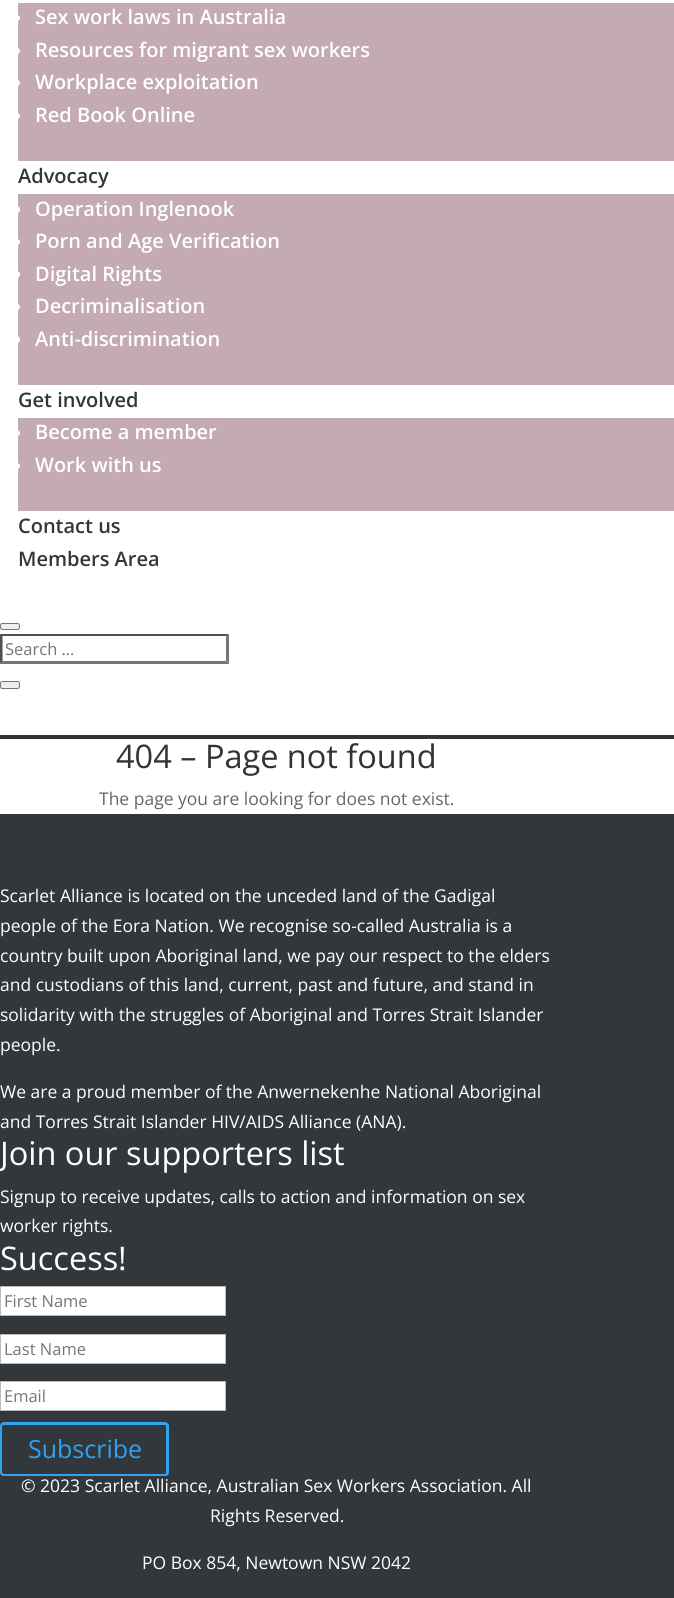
#include <cairo.h>
#include <math.h>
#include <stddef.h>

static cairo_t *c;
static void C(unsigned color){cairo_set_source_rgb(c, (color >> 16) / 255.0, (color >> 8 & 255) / 255.0, (color & 255) / 255.0);}
static void F(const char *family, double size, int italic, int bold){cairo_select_font_face(c, family, italic ? CAIRO_FONT_SLANT_ITALIC : CAIRO_FONT_SLANT_NORMAL,bold ? CAIRO_FONT_WEIGHT_BOLD : CAIRO_FONT_WEIGHT_NORMAL);cairo_set_font_size(c, size);}
static void T(double x, double y, const char *s){cairo_move_to(c, x, y);cairo_show_text(c, s);}
static void R(double x, double y, double w, double h){cairo_rectangle(c, x, y, w, h);cairo_fill(c);}
static void Q(double x, double y, double w, double h, double r){cairo_new_sub_path(c);cairo_arc(c, x + w - r, y + h - r, r, 0, M_PI / 2);cairo_arc(c, x + r, y + h - r, r, M_PI / 2, M_PI);cairo_arc(c, x + r, y + r, r, M_PI, 1.5 * M_PI);cairo_arc(c, x + w - r, y + r, r, 1.5 * M_PI, 2 * M_PI);cairo_close_path(c);}
int main(void) {
cairo_surface_t *surface = cairo_image_surface_create(CAIRO_FORMAT_RGB24, 674, 1598);
c = cairo_create(surface);
cairo_font_options_t *options = cairo_font_options_create();
cairo_font_options_set_hint_metrics(options, CAIRO_HINT_METRICS_OFF);
cairo_font_options_set_hint_style(options, CAIRO_HINT_STYLE_NONE);
cairo_set_font_options(c, options);
cairo_set_miter_limit(c, 4);
C(0xffffff);
cairo_paint(c);
C(0x333333);
R(0,735,674,4);
C(0xc3aab5);
R(18,3,656,158);
C(0xffffff);
cairo_arc(c,17,18,3,0,2 * M_PI);
cairo_fill(c);
F("Open Sans SemiBold",20,0,0);
T(35,24,"Sex work laws in Australia");
cairo_new_path(c);
cairo_arc(c,17,51,3,0,2 * M_PI);
cairo_fill(c);
T(35,57,"Resources for migrant sex workers");
cairo_new_path(c);
cairo_arc(c,17,83,3,0,2 * M_PI);
cairo_fill(c);
T(35,89,"Workplace exploitation");
cairo_new_path(c);
cairo_arc(c,17,116,3,0,2 * M_PI);
cairo_fill(c);
T(35,122,"Red Book Online");
C(0x32373b);
T(18,183,"Advocacy");
C(0xc3aab5);
R(18,194,656,191);
C(0xffffff);
Q(14,206,6,7,3);
cairo_fill(c);
T(35,216,"Operation Inglenook");
cairo_new_path(c);
cairo_arc(c,17,242,3,0,2 * M_PI);
cairo_fill(c);
T(35,248,"Porn and Age Verification");
Q(14,271,6,7,3);
cairo_fill(c);
T(35,281,"Digital Rights");
cairo_new_path(c);
cairo_arc(c,17,307,3,0,2 * M_PI);
cairo_fill(c);
T(35,313,"Decriminalisation");
Q(14,336,6,7,3);
cairo_fill(c);
T(35,346,"Anti-discrimination");
C(0x32373b);
T(18,407,"Get involved");
C(0xc3aab5);
R(18,418,656,93);
C(0xffffff);
cairo_new_path(c);
cairo_arc(c,17,433,3,0,2 * M_PI);
cairo_fill(c);
T(35,439,"Become a member");
cairo_new_path(c);
cairo_arc(c,17,466,3,0,2 * M_PI);
cairo_fill(c);
T(35,472,"Work with us");
C(0x32373b);
T(18,533,"Contact us");
T(18,566,"Members Area");
C(0xefefef);
Q(.5,623.5,19,6,2);
cairo_fill_preserve(c);
C(0x767676);
cairo_set_line_width(c,1);
cairo_stroke(c);
C(0x4f4f4f);
cairo_new_path(c);
cairo_move_to(c,0,634);
cairo_line_to(c,229,634);
cairo_line_to(c,226,636);
cairo_line_to(c,2,636);
cairo_close_path(c);
cairo_fill(c);
C(0x767676);
cairo_new_path(c);
cairo_move_to(c,229,634);
cairo_line_to(c,229,664);
cairo_line_to(c,226,661);
cairo_line_to(c,226,636);
cairo_close_path(c);
cairo_fill(c);
cairo_new_path(c);
cairo_move_to(c,229,664);
cairo_line_to(c,0,664);
cairo_line_to(c,2,661);
cairo_line_to(c,226,661);
cairo_close_path(c);
cairo_fill(c);
C(0x4f4f4f);
cairo_new_path(c);
cairo_move_to(c,0,664);
cairo_line_to(c,0,634);
cairo_line_to(c,2.5,636);
cairo_line_to(c,2.5,661);
cairo_close_path(c);
cairo_fill(c);
F("Open Sans",16.5,0,0);
C(0x757575);
T(5,655,"Search …");
C(0xefefef);
Q(.5,681.5,19,7,2);
cairo_fill_preserve(c);
C(0x767676);
cairo_stroke(c);
F("Open Sans",32.5,0,0);
C(0x333333);
T(116,768,"404 – Page not found");
F("Open Sans",17.5,0,0);
C(0x666666);
T(99,805,"The page you are looking for does not exist.");
C(0x32373b);
R(0,814,674,784);
C(0xffffff);
T(0,902,"Scarlet Alliance is located on the unceded land of the Gadigal");
T(0,932,"people of the Eora Nation. We recognise so-called Australia is a");
T(0,962,"country built upon Aboriginal land, we pay our respect to the elders");
T(0,991,"and custodians of this land, current, past and future, and stand in");
T(0,1021,"solidarity with the struggles of Aboriginal and Torres Strait Islander");
T(0,1051,"people.");
T(0,1098,"We are a proud member of the Anwernekenhe National Aboriginal");
T(0,1128,"and Torres Strait Islander HIV/AIDS Alliance (ANA).");
F("Open Sans",32.5,0,0);
T(0,1165,"Join our supporters list");
F("Open Sans",17.5,0,0);
T(0,1203,"Signup to receive updates, calls to action and information on sex");
T(0,1232,"worker rights.");
F("Open Sans",32.5,0,0);
T(0,1270,"Success!");
cairo_rectangle(c,.5,1286.5,225,29);
cairo_fill_preserve(c);
C(0xbbbbbb);
cairo_stroke(c);
F("Open Sans",16.5,0,0);
C(0x757575);
T(4,1307,"First Name");
C(0xffffff);
cairo_rectangle(c,.5,1334.5,225,29);
cairo_fill_preserve(c);
C(0xbbbbbb);
cairo_stroke(c);
C(0x757575);
T(4,1355,"Last Name");
C(0xffffff);
cairo_rectangle(c,.5,1381.5,225,29);
cairo_fill_preserve(c);
C(0xbbbbbb);
cairo_stroke(c);
C(0x757575);
T(4,1402,"Email");
C(0x2ea3f2);
cairo_set_fill_rule(c,CAIRO_FILL_RULE_EVEN_ODD);
cairo_new_path(c);
cairo_move_to(c,28,1422);
cairo_line_to(c,165,1422);
cairo_curve_to(c,167,1422,169,1424,169,1426);
cairo_line_to(c,169,1472);
cairo_curve_to(c,169,1475,167,1476,165,1476);
cairo_line_to(c,28,1476);
cairo_close_path(c);
cairo_move_to(c,28,1425);
cairo_line_to(c,165,1425);
cairo_curve_to(c,166,1425,166,1426,166,1426);
cairo_line_to(c,166,1472);
cairo_curve_to(c,166,1473,166,1474,165,1474);
cairo_line_to(c,28,1474);
cairo_close_path(c);
cairo_fill(c);
F("Open Sans",25,0,0);
T(28,1458,"Subscribe");
cairo_new_path(c);
cairo_move_to(c,4,1422);
cairo_line_to(c,28,1422);
cairo_line_to(c,28,1476);
cairo_line_to(c,4,1476);
cairo_curve_to(c,2,1476,0,1475,0,1472);
cairo_line_to(c,0,1426);
cairo_curve_to(c,0,1424,2,1422,4,1422);
cairo_close_path(c);
cairo_move_to(c,4,1425);
cairo_line_to(c,28,1425);
cairo_line_to(c,28,1474);
cairo_line_to(c,4,1474);
cairo_curve_to(c,3,1474,2,1473,2,1472);
cairo_line_to(c,2,1426);
cairo_curve_to(c,2,1426,3,1425,4,1425);
cairo_close_path(c);
cairo_fill(c);
F("Open Sans",17.5,0,0);
C(0xffffff);
T(21,1492,"© 2023 Scarlet Alliance, Australian Sex Workers Association. All");
T(210,1522,"Rights Reserved.");
T(142,1569,"PO Box 854, Newtown NSW 2042");
cairo_surface_write_to_png(surface, "o.png");
cairo_font_options_destroy(options);
cairo_destroy(c);
cairo_surface_destroy(surface);
return 0;
}
